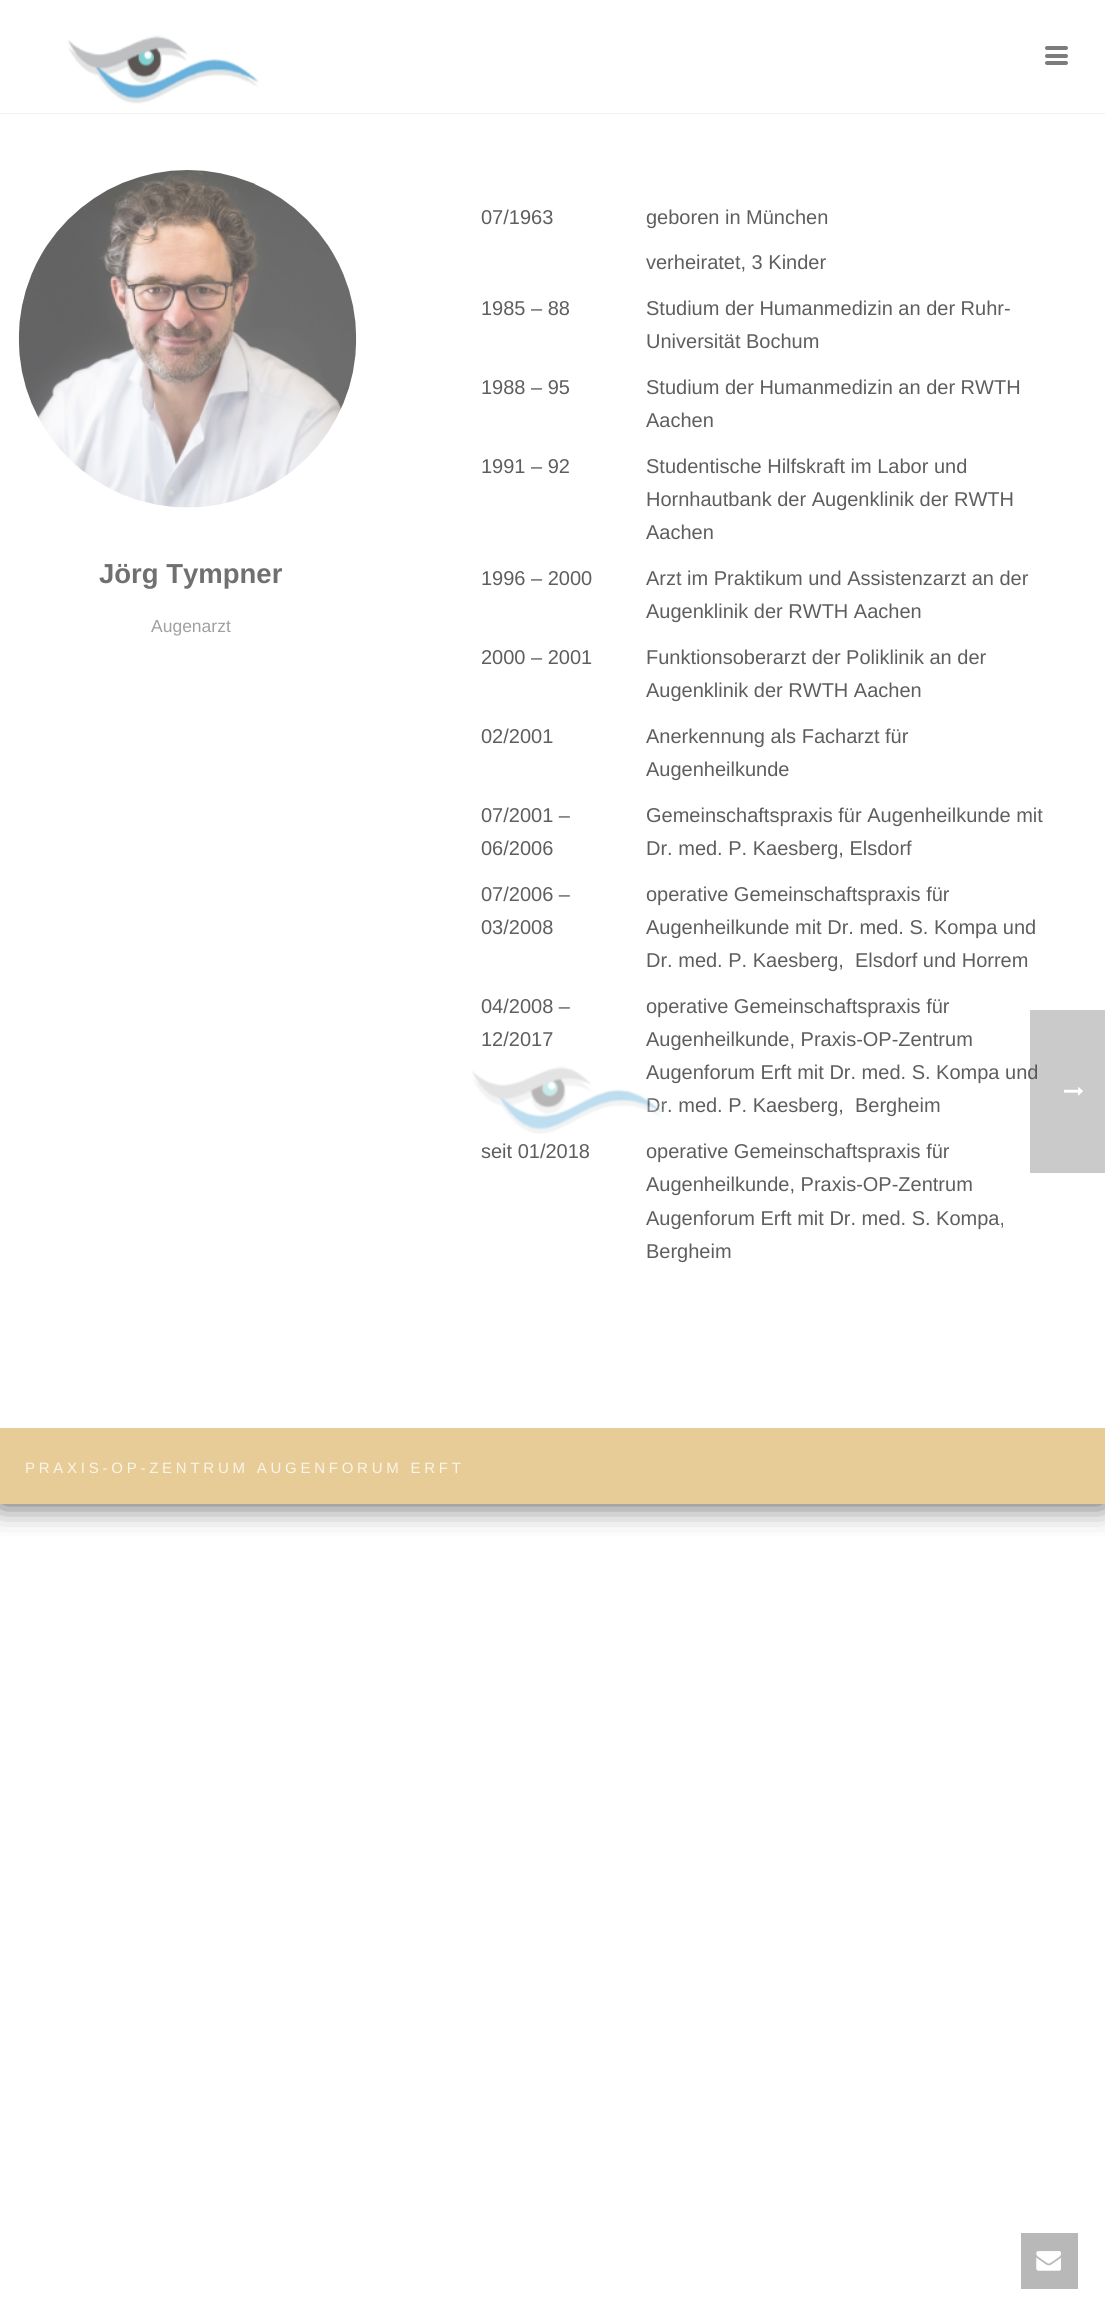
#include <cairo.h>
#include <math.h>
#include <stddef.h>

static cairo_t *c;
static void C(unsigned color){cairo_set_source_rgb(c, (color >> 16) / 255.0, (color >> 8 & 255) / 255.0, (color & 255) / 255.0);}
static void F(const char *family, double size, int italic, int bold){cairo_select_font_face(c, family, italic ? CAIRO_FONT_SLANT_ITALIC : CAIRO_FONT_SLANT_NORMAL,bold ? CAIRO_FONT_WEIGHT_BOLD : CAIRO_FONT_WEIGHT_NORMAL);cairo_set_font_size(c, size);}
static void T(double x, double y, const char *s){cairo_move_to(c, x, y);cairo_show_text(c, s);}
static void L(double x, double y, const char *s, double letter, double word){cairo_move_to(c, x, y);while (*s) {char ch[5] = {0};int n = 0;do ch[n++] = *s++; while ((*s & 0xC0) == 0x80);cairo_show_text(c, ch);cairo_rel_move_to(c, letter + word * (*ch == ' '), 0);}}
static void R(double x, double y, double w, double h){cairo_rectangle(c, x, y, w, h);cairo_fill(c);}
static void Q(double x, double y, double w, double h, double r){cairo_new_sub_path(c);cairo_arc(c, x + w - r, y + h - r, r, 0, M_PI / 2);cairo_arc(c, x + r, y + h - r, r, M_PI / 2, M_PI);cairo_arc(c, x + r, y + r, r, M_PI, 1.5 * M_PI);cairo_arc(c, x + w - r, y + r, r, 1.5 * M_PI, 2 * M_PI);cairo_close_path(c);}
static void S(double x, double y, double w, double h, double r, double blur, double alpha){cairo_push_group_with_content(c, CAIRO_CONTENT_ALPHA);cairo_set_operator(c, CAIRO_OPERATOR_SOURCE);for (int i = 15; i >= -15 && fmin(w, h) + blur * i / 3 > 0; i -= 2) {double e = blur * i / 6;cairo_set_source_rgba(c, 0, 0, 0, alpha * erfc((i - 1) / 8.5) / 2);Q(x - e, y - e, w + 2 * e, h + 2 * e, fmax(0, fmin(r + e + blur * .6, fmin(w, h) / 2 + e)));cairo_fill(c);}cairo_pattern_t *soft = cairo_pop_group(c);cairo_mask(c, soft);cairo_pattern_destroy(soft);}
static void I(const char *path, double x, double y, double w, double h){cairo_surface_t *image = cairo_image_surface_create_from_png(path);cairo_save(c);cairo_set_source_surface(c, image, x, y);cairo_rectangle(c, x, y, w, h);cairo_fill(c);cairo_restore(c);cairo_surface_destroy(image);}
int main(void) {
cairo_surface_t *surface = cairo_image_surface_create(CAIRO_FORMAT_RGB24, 1105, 2307);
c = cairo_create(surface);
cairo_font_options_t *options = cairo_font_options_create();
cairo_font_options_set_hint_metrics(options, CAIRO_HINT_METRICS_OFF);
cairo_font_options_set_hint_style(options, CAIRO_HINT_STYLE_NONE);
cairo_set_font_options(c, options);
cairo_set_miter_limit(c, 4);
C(0xffffff);
cairo_paint(c);
cairo_save(c);
cairo_rectangle(c,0,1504,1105,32);
cairo_clip(c);
C(0x4d4d4d);
S(0,0,1105,1504,0,15.5,1);
cairo_restore(c);
C(0xf2f2f2);
R(0,113,1105,1);
I("1.png",67,35,192,69);
C(0x7c7c7c);
Q(1045,46,23,4,2);
cairo_fill(c);
Q(1045,54,23,4,2);
cairo_fill(c);
Q(1045,61,23,4,2);
cairo_fill(c);
I("2.png",18,170,339,338);
F("Liberation Sans",27.5,0,1);
C(0x707070);
T(99,583,"Jörg Tympner");
F("Liberation Sans",17.5,0,0);
C(0xa0a0a0);
T(151,632,"Augenarzt");
F("Liberation Sans",20,0,0);
C(0x5e5e5e);
T(481,224,"07/1963");
T(646,224,"geboren in München");
T(646,269,"verheiratet, 3 Kinder");
T(481,315,"1985 – 88");
T(646,315,"Studium der Humanmedizin an der Ruhr-");
T(646,348,"Universität Bochum");
T(481,394,"1988 – 95");
T(646,394,"Studium der Humanmedizin an der RWTH");
T(646,427,"Aachen");
T(481,473,"1991 – 92");
T(646,473,"Studentische Hilfskraft im Labor und");
T(646,506,"Hornhautbank der Augenklinik der RWTH");
T(646,539,"Aachen");
T(481,585,"1996 – 2000");
T(646,585,"Arzt im Praktikum und Assistenzarzt an der");
T(646,618,"Augenklinik der RWTH Aachen");
T(481,664,"2000 – 2001");
T(646,664,"Funktionsoberarzt der Poliklinik an der");
T(646,697,"Augenklinik der RWTH Aachen");
T(481,743,"02/2001");
T(646,743,"Anerkennung als Facharzt für");
T(646,776,"Augenheilkunde");
T(481,822,"07/2001 –");
T(481,855,"06/2006");
T(646,822,"Gemeinschaftspraxis für Augenheilkunde mit");
T(646,855,"Dr. med. P. Kaesberg, Elsdorf");
T(481,901,"07/2006 –");
T(481,934,"03/2008");
T(646,901,"operative Gemeinschaftspraxis für");
T(646,934,"Augenheilkunde mit Dr. med. S. Kompa und");
T(646,967,"Dr. med. P. Kaesberg,  Elsdorf und Horrem");
T(481,1013,"04/2008 –");
T(481,1046,"12/2017");
T(646,1013,"operative Gemeinschaftspraxis für");
T(646,1046,"Augenheilkunde, Praxis-OP-Zentrum");
T(646,1079,"Augenforum Erft mit Dr. med. S. Kompa und");
T(646,1112,"Dr. med. P. Kaesberg,  Bergheim");
T(481,1158,"seit 01/2018");
T(646,1158,"operative Gemeinschaftspraxis für");
T(646,1191,"Augenheilkunde, Praxis-OP-Zentrum");
T(646,1225,"Augenforum Erft mit Dr. med. S. Kompa,");
T(646,1258,"Bergheim");
C(0xe8cc97);
R(0,1428,1105,76);
F("Liberation Sans",15,0,0);
C(0xfaf5ea);
L(25,1473,"PRAXIS-OP-ZENTRUM AUGENFORUM ERFT",3.75,0);
cairo_set_source_rgba(c,0.302,0.302,0.302,0.3);
R(1030,1010,75,163);
I("3.png",1064,1087,19,9);
I("4.png",472,1066,192,68);
C(0xb8b8b8);
R(1021,2233,57,56);
I("5.png",1036,2251,25,20);
cairo_surface_write_to_png(surface, "o.png");
cairo_font_options_destroy(options);
cairo_destroy(c);
cairo_surface_destroy(surface);
return 0;
}
